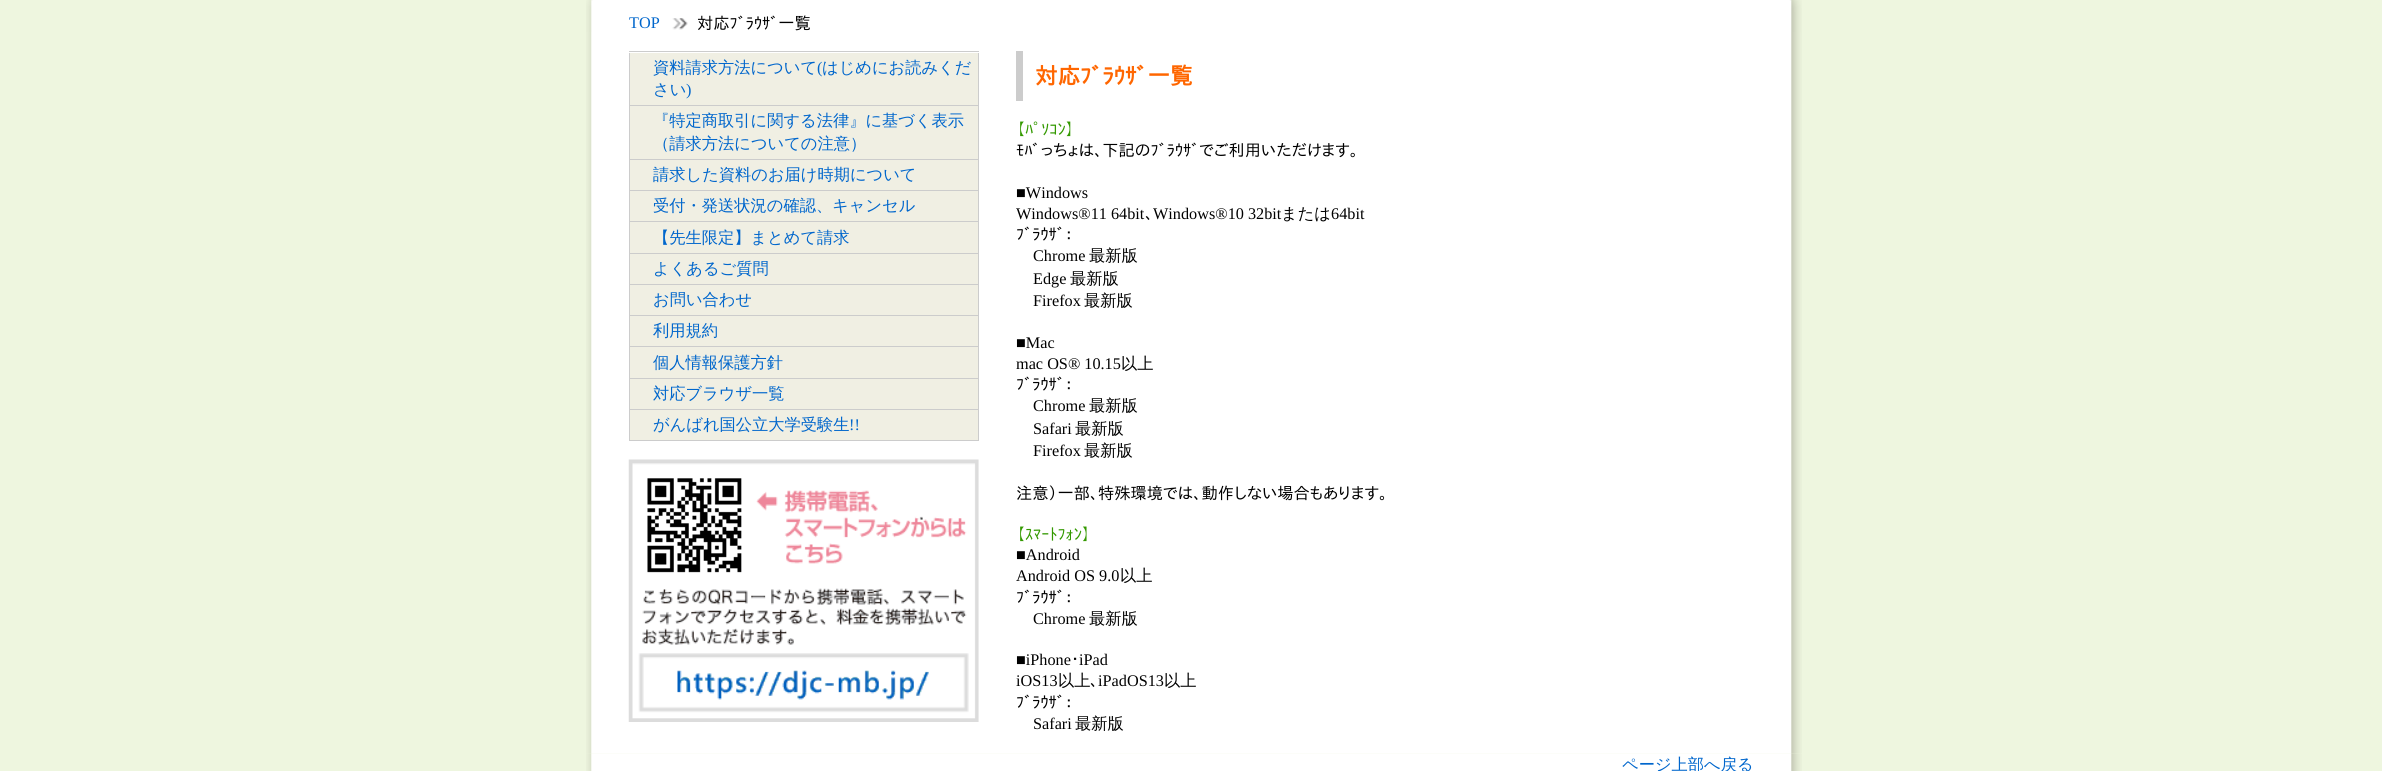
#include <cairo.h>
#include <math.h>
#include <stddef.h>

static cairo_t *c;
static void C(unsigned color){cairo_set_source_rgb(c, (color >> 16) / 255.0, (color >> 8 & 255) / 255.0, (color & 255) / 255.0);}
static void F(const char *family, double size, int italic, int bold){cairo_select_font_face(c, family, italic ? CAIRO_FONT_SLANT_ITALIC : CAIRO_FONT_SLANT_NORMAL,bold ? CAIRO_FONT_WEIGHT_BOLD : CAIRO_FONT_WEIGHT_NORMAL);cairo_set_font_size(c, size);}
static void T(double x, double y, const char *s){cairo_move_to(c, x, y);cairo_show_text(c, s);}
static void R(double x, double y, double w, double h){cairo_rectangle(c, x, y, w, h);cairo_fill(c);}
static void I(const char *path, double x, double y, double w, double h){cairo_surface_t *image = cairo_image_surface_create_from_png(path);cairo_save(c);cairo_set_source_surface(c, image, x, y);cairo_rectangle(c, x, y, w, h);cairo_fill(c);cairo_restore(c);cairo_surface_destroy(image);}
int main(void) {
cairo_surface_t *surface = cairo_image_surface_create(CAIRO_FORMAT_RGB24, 2382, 771);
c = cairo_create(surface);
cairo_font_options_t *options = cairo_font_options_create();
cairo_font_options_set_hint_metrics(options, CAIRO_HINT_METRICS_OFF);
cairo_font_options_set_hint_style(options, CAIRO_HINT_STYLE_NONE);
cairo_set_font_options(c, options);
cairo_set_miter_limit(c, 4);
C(0xeef6df);
cairo_paint(c);
I("1.png",586,0,1216,32);
F("Liberation Serif",16.25,0,0);
C(0x0066cc);
T(629,28,"TOP");
I("2.png",672,18,16,12);
F("IPAPGothic",16.25,0,0);
C(0x000000);
T(697,29,"対応ﾌﾞﾗｳｻﾞ一覧");
I("3.png",586,32,1216,722);
C(0xcccccc);
R(629,51,350,1);
C(0xf0efe3);
R(630,53,348,52);
C(0xcccccc);
R(978,53,1,388);
R(629,105,350,1);
R(629,53,1,53);
F("WenQuanYi Zen Hei Medium",16.25,0,0);
C(0x0066cc);
T(653,73,"資料請求方法について");
F("Liberation Serif",16.25,0,0);
T(817,73,"(");
F("WenQuanYi Zen Hei Medium",16.25,0,0);
T(822,73,"はじめにお読みくだ");
T(653,95,"さい");
F("Liberation Serif",16.25,0,0);
T(686,95,")");
C(0xf0efe3);
R(630,106,348,53);
C(0xcccccc);
R(629,159,350,1);
R(629,106,1,54);
F("WenQuanYi Zen Hei Medium",16.25,0,0);
C(0x0066cc);
T(653,126,"『特定商取引に関する法律』に基づく表示");
T(653,149,"（請求方法についての注意）");
C(0xf0efe3);
R(630,160,348,30);
C(0xcccccc);
R(629,190,350,1);
R(629,160,1,31);
C(0x0066cc);
T(653,180,"請求した資料のお届け時期について");
C(0xf0efe3);
R(630,191,348,62);
C(0xcccccc);
R(629,221,350,1);
R(629,191,1,32);
C(0x0066cc);
T(653,211,"受付・発送状況の確認、キャンセル");
C(0xcccccc);
R(629,253,350,1);
R(629,223,1,31);
C(0x0066cc);
T(653,243,"【先生限定】まとめて請求");
C(0xf0efe3);
R(630,254,348,30);
C(0xcccccc);
R(629,284,350,1);
R(629,254,1,31);
C(0x0066cc);
T(653,274,"よくあるご質問");
C(0xf0efe3);
R(630,285,348,30);
C(0xcccccc);
R(629,315,350,1);
R(629,285,1,31);
C(0x0066cc);
T(653,305,"お問い合わせ");
C(0xf0efe3);
R(630,316,348,62);
C(0xcccccc);
R(629,346,350,1);
R(629,316,1,32);
C(0x0066cc);
T(653,336,"利用規約");
C(0xcccccc);
R(629,378,350,1);
R(629,348,1,31);
C(0x0066cc);
T(653,368,"個人情報保護方針");
C(0xf0efe3);
R(630,379,348,30);
C(0xcccccc);
R(629,409,350,1);
R(629,379,1,31);
C(0x0066cc);
T(653,399,"対応ブラウザ一覧");
C(0xf0efe3);
R(630,410,348,30);
C(0xcccccc);
R(629,440,350,1);
R(629,410,1,31);
C(0x0066cc);
T(653,430,"がんばれ国公立大学受験生");
F("Liberation Serif",16.25,0,0);
T(849,430,"!!");
I("4.png",628,459,351,263);
C(0xcccccc);
R(1016,51,7,50);
F("IPAPGothic",22.5,0,1);
C(0xff6600);
T(1035,84,"対応ﾌﾞﾗｳｻﾞ一覧");
F("IPAPGothic",16.25,0,0);
C(0x339900);
T(1016,135,"【ﾊﾟｿｺﾝ】");
C(0x000000);
T(1016,156,"ﾓﾊﾞっちょは､下記のﾌﾞﾗｳｻﾞでご利用いただけます｡");
F("Liberation Serif",16.25,0,0);
T(1016,198,"■Windows");
T(1016,219,"Windows®11 64bit");
F("IPAPGothic",16.25,0,0);
T(1145,219,"､");
F("Liberation Serif",16.25,0,0);
T(1153,219,"Windows®10 32bit");
F("WenQuanYi Zen Hei Medium",16.25,0,0);
T(1281,219,"または");
F("Liberation Serif",16.25,0,0);
T(1331,219,"64bit");
F("IPAPGothic",16.25,0,0);
T(1016,240,"ﾌﾞﾗｳｻﾞ：");
F("Liberation Serif",16.25,0,0);
T(1033,261,"Chrome");
F("WenQuanYi Zen Hei Medium",16.25,0,0);
T(1089,261,"最新版");
F("Liberation Serif",16.25,0,0);
T(1033,284,"Edge");
F("WenQuanYi Zen Hei Medium",16.25,0,0);
T(1070,284,"最新版");
F("Liberation Serif",16.25,0,0);
T(1033,306,"Firefox");
F("WenQuanYi Zen Hei Medium",16.25,0,0);
T(1084,306,"最新版");
F("Liberation Serif",16.25,0,0);
T(1016,348,"■Mac");
T(1016,369,"mac OS® 10.15");
F("WenQuanYi Zen Hei Medium",16.25,0,0);
T(1121,369,"以上");
F("IPAPGothic",16.25,0,0);
T(1016,390,"ﾌﾞﾗｳｻﾞ：");
F("Liberation Serif",16.25,0,0);
T(1033,411,"Chrome");
F("WenQuanYi Zen Hei Medium",16.25,0,0);
T(1089,411,"最新版");
F("Liberation Serif",16.25,0,0);
T(1033,434,"Safari");
F("WenQuanYi Zen Hei Medium",16.25,0,0);
T(1075,434,"最新版");
F("Liberation Serif",16.25,0,0);
T(1033,456,"Firefox");
F("WenQuanYi Zen Hei Medium",16.25,0,0);
T(1084,456,"最新版");
F("IPAPGothic",16.25,0,0);
T(1016,499,"注意）一部､特殊環境では､動作しない場合もあります｡");
C(0x339900);
T(1016,540,"【ｽﾏｰﾄﾌｫﾝ】");
F("Liberation Serif",16.25,0,0);
C(0x000000);
T(1016,560,"■Android");
T(1016,581,"Android OS 9.0");
F("WenQuanYi Zen Hei Medium",16.25,0,0);
T(1120,581,"以上");
F("IPAPGothic",16.25,0,0);
T(1016,603,"ﾌﾞﾗｳｻﾞ：");
F("Liberation Serif",16.25,0,0);
T(1033,624,"Chrome");
F("WenQuanYi Zen Hei Medium",16.25,0,0);
T(1089,624,"最新版");
F("Liberation Serif",16.25,0,0);
T(1016,665,"■iPhone");
F("IPAPGothic",16.25,0,0);
T(1071,665,"･");
F("Liberation Serif",16.25,0,0);
T(1079,665,"iPad");
T(1016,686,"iOS13");
F("WenQuanYi Zen Hei Medium",16.25,0,0);
T(1058,686,"以上");
F("IPAPGothic",16.25,0,0);
T(1090,686,"､");
F("Liberation Serif",16.25,0,0);
T(1098,686,"iPadOS13");
F("WenQuanYi Zen Hei Medium",16.25,0,0);
T(1164,686,"以上");
F("IPAPGothic",16.25,0,0);
T(1016,708,"ﾌﾞﾗｳｻﾞ：");
F("Liberation Serif",16.25,0,0);
T(1033,729,"Safari");
F("WenQuanYi Zen Hei Medium",16.25,0,0);
T(1075,729,"最新版");
I("5.png",586,753,1216,18);
C(0x0066cc);
T(1622,770,"ページ上部へ戻る");
cairo_surface_write_to_png(surface, "o.png");
cairo_font_options_destroy(options);
cairo_destroy(c);
cairo_surface_destroy(surface);
return 0;
}
